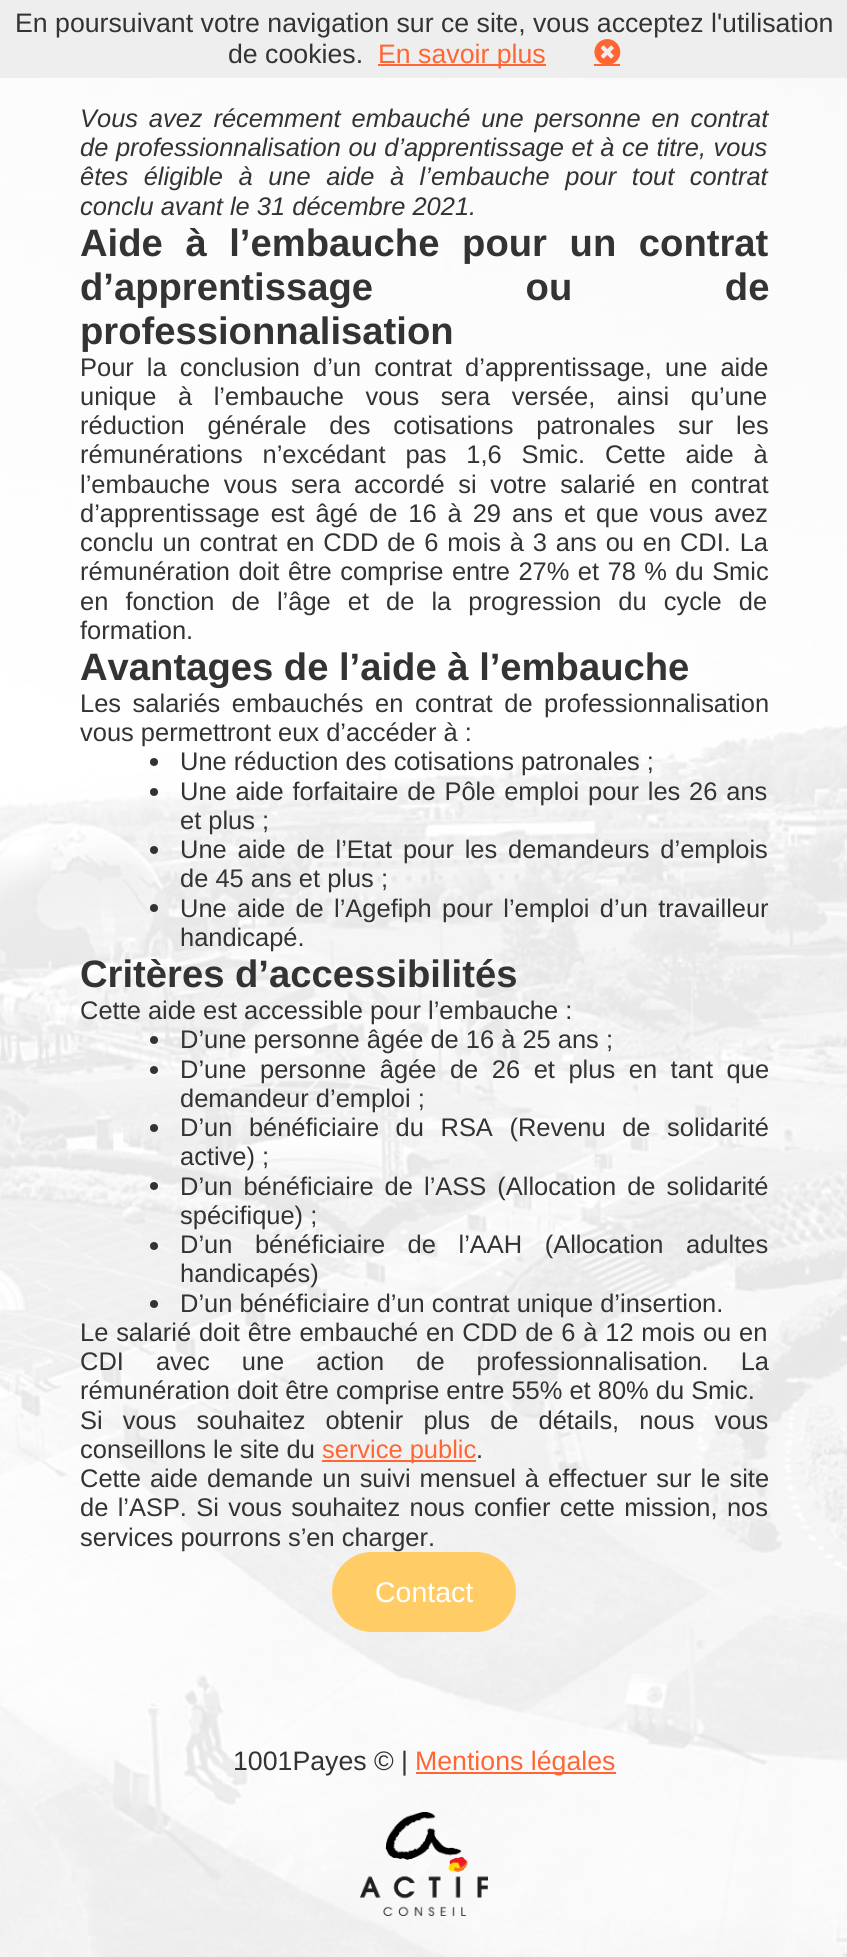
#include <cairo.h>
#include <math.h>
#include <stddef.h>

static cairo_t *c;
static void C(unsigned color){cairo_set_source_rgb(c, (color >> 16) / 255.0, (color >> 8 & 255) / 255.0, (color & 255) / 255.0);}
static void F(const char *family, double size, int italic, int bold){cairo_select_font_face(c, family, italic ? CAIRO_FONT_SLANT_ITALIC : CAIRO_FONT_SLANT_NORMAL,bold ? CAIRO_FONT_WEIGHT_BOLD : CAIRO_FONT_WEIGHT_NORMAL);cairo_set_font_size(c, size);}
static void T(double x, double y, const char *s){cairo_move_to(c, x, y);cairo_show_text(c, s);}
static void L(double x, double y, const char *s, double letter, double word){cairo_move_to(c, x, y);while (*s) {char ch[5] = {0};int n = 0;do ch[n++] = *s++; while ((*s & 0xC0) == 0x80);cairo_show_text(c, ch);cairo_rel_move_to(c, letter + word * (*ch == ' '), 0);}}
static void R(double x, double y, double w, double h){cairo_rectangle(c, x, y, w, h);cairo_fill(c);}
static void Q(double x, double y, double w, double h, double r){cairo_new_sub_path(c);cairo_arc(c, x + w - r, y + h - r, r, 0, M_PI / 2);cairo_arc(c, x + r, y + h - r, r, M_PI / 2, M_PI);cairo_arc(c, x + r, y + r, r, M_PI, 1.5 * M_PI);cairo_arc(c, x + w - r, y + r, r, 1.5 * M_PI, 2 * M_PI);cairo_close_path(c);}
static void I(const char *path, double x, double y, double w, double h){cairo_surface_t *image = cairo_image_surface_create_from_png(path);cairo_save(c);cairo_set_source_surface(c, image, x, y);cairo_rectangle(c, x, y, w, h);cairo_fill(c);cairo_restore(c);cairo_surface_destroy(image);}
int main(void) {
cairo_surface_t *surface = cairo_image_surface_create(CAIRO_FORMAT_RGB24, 847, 1957);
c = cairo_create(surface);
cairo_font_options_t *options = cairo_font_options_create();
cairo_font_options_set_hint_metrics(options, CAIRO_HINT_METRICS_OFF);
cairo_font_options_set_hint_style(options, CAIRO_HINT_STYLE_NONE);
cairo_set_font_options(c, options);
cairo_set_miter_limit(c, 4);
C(0xffffff);
cairo_paint(c);
C(0xeeeeee);
R(0,0,847,78);
F("Liberation Sans",26.7,0,0);
C(0x333333);
T(15,32,"En poursuivant votre navigation sur ce site, vous acceptez l'utilisation");
T(228,63,"de cookies.");
C(0xff6633);
R(378,64,168,2);
T(378,63,"En savoir plus");
I("1.png",594,39,27,25);
R(594,64,26,2);
I("2.png",0,78,847,1879);
F("Liberation Sans",25.45,1,0);
C(0x333333);
L(80,127,"Vous avez récemment embauché une personne en contrat",0,3.75);
L(80,156,"de professionnalisation ou d’apprentissage et à ce titre, vous",0,.5);
L(80,185,"êtes éligible à une aide à l’embauche pour tout contrat",0,8.5);
T(80,215,"conclu avant le 31 décembre 2021.");
F("Liberation Sans",38.2,0,1);
L(80,256,"Aide à l’embauche pour un contrat",0,12);
L(80,300,"d’apprentissage ou de",0,142);
T(80,344,"professionnalisation");
F("Liberation Sans",25.45,0,0);
L(80,376,"Pour la conclusion d’un contrat d’apprentissage, une aide",0,6);
L(80,405,"unique à l’embauche vous sera versée, ainsi qu’une",0,14.5);
L(80,434,"réduction générale des cotisations patronales sur les",0,15.75);
L(80,463,"rémunérations n’excédant pas 1,6 Smic. Cette aide à",0,12.75);
L(80,493,"l’embauche vous sera accordé si votre salarié en contrat",0,6.5);
L(80,522,"d’apprentissage est âgé de 16 à 29 ans et que vous avez",0,3.9);
L(80,551,"conclu un contrat en CDD de 6 mois à 3 ans ou en CDI. La",0,1.75);
L(80,580,"rémunération doit être comprise entre 27% et 78 % du Smic",0,1.4);
L(80,610,"en fonction de l’âge et de la progression du cycle de",0,10);
T(80,639,"formation.");
F("Liberation Sans",38.2,0,1);
T(80,680,"Avantages de l’aide à l’embauche");
F("Liberation Sans",25.45,0,0);
L(80,712,"Les salariés embauchés en contrat de professionnalisation",0,4.5);
T(80,741,"vous permettront eux d’accéder à :");
cairo_new_path(c);
cairo_arc(c,154,762,4,0,2 * M_PI);
cairo_fill(c);
T(180,770,"Une réduction des cotisations patronales ;");
cairo_new_path(c);
cairo_arc(c,154,792,4,0,2 * M_PI);
cairo_fill(c);
L(180,800,"Une aide forfaitaire de Pôle emploi pour les 26 ans",0,1.75);
T(180,829,"et plus ;");
cairo_new_path(c);
cairo_arc(c,154,850,4,0,2 * M_PI);
cairo_fill(c);
L(180,858,"Une aide de l’Etat pour les demandeurs d’emplois",0,3.75);
T(180,887,"de 45 ans et plus ;");
cairo_new_path(c);
cairo_arc(c,154,908,4,0,2 * M_PI);
cairo_fill(c);
L(180,917,"Une aide de l’Agefiph pour l’emploi d’un travailleur",0,3.25);
T(180,946,"handicapé.");
F("Liberation Sans",38.2,0,1);
T(80,987,"Critères d’accessibilités");
F("Liberation Sans",25.45,0,0);
T(80,1019,"Cette aide est accessible pour l’embauche :");
cairo_new_path(c);
cairo_arc(c,154,1040,4,0,2 * M_PI);
cairo_fill(c);
T(180,1048,"D’une personne âgée de 16 à 25 ans ;");
cairo_new_path(c);
cairo_arc(c,154,1070,4,0,2 * M_PI);
cairo_fill(c);
L(180,1078,"D’une personne âgée de 26 et plus en tant que",0,6.5);
T(180,1107,"demandeur d’emploi ;");
cairo_new_path(c);
cairo_arc(c,154,1128,4,0,2 * M_PI);
cairo_fill(c);
L(180,1136,"D’un bénéficiaire du RSA (Revenu de solidarité",0,9.5);
T(180,1165,"active) ;");
cairo_new_path(c);
cairo_arc(c,154,1186,4,0,2 * M_PI);
cairo_fill(c);
L(180,1195,"D’un bénéficiaire de l’ASS (Allocation de solidarité",0,4);
T(180,1224,"spécifique) ;");
cairo_new_path(c);
cairo_arc(c,154,1246,4,0,2 * M_PI);
cairo_fill(c);
L(180,1253,"D’un bénéficiaire de l’AAH (Allocation adultes",0,15.5);
T(180,1282,"handicapés)");
cairo_new_path(c);
cairo_arc(c,154,1304,4,0,2 * M_PI);
cairo_fill(c);
T(180,1312,"D’un bénéficiaire d’un contrat unique d’insertion.");
L(80,1341,"Le salarié doit être embauché en CDD de 6 à 12 mois ou en",0,.75);
L(80,1370,"CDI avec une action de professionnalisation. La",0,25);
T(80,1399,"rémunération doit être comprise entre 55% et 80% du Smic.");
L(80,1429,"Si vous souhaitez obtenir plus de détails, nous vous",0,13);
T(80,1458,"conseillons le site du");
C(0xff6633);
R(322,1460,154,2);
T(322,1458,"service public");
C(0x333333);
T(476,1458,".");
L(80,1487,"Cette aide demande un suivi mensuel à effectuer sur le site",0,2);
L(80,1516,"de l’ASP. Si vous souhaitez nous confier cette mission, nos",0,2.25);
T(80,1546,"services pourrons s’en charger.");
C(0xffcc66);
Q(332,1552,184,80,40);
cairo_fill(c);
F("Liberation Sans",28.5,0,0);
C(0xffffff);
T(375,1602,"Contact");
F("Liberation Sans",26.7,0,0);
C(0x333333);
T(233,1770,"1001Payes © |");
C(0xff6633);
R(416,1772,200,2);
T(415,1770,"Mentions légales");
I("3.png",360,1812,128,104);
cairo_surface_write_to_png(surface, "o.png");
cairo_font_options_destroy(options);
cairo_destroy(c);
cairo_surface_destroy(surface);
return 0;
}
